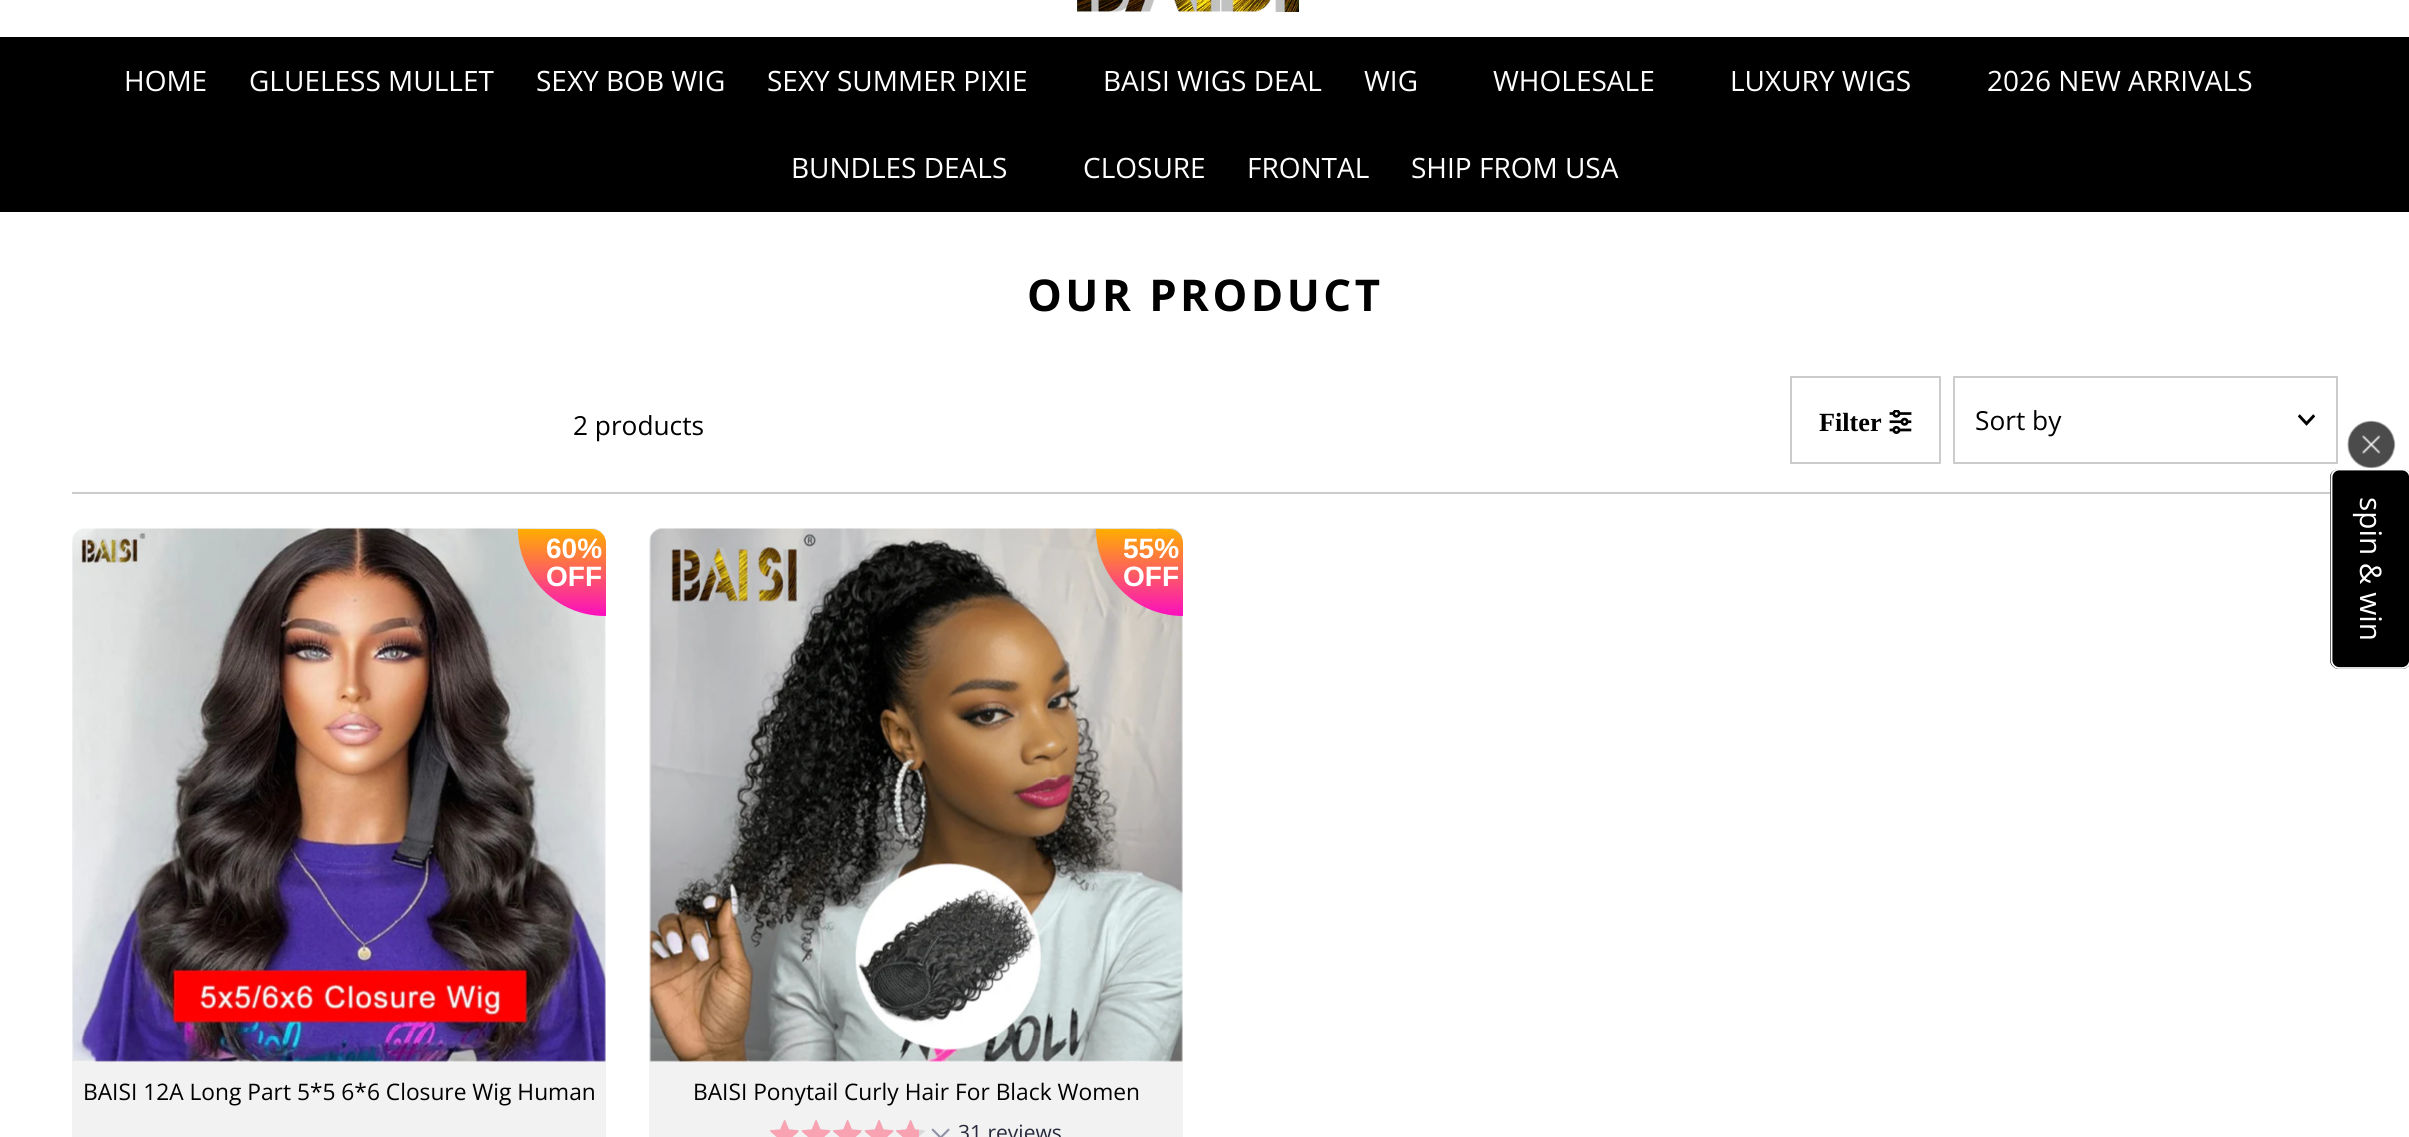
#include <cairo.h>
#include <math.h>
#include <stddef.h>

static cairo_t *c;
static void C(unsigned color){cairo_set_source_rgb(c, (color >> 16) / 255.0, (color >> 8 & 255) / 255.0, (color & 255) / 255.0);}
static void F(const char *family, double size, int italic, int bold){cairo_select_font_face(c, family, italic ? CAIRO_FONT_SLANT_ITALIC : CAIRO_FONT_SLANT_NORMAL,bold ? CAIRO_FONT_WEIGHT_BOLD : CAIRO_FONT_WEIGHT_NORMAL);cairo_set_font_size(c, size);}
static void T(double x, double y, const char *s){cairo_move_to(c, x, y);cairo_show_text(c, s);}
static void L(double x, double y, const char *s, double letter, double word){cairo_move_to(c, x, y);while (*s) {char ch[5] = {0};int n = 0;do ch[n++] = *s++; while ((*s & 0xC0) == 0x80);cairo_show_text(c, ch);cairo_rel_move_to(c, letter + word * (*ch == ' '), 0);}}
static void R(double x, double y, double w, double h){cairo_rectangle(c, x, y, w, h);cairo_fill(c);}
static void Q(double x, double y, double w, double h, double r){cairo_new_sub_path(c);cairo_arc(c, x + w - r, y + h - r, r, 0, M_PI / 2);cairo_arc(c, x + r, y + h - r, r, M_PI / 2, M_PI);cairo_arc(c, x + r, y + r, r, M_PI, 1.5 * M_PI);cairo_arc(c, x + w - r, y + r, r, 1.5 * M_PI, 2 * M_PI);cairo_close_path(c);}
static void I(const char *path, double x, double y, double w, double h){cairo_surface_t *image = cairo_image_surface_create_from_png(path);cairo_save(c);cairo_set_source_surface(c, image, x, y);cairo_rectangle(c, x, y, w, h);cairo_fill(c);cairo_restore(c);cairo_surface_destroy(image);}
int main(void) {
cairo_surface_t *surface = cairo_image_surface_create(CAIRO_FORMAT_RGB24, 2409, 1137);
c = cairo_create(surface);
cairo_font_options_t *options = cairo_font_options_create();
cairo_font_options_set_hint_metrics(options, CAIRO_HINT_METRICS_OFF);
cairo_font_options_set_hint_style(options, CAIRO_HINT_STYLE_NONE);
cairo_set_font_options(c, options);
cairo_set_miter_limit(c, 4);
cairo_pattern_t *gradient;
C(0xffffff);
cairo_paint(c);
I("1.png",1077,0,222,12);
C(0x000000);
R(0,37,2409,175);
F("Open Sans",28,0,0);
C(0xffffff);
T(124,91,"HOME");
T(249,91,"GLUELESS MULLET");
T(536,91,"SEXY BOB WIG");
T(767,91,"SEXY SUMMER PIXIE");
T(1103,91,"BAISI WIGS DEAL");
T(1364,91,"WIG");
T(1493,91,"WHOLESALE");
T(1730,91,"LUXURY WIGS");
T(1987,91,"2026 NEW ARRIVALS");
T(791,178,"BUNDLES DEALS");
T(1083,178,"CLOSURE");
T(1247,178,"FRONTAL");
T(1411,178,"SHIP FROM USA");
F("Open Sans",43.75,0,1);
C(0x000000);
L(1027,311,"OUR PRODUCT",3.5,0);
C(0xcccccc);
R(72,492,2266,2);
F("Open Sans",26.25,0,0);
C(0x000000);
T(573,435,"2 products");
cairo_rectangle(c,1791,377,149,86);
C(0xcccccc);
cairo_stroke(c);
F("Liberation Serif",26.25,0,1);
C(0x000000);
T(1819,431,"Filter");
I("2.png",1889,410,23,24);
cairo_rectangle(c,1954,377,383,86);
C(0xcccccc);
cairo_stroke(c);
F("Open Sans",26.25,0,0);
C(0x000000);
T(1975,430,"Sort by");
I("3.png",2298,414,17,12);
C(0xf2f2f2);
Q(72,529,534,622,14);
cairo_fill(c);
cairo_save(c);
Q(72,529,534,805,14);
cairo_clip(c);
C(0xffffff);
cairo_new_path(c);
cairo_move_to(c,74,529);
cairo_line_to(c,592,529);
cairo_curve_to(c,599.5,529,606,535.5,606,543);
cairo_line_to(c,606,1062);
cairo_line_to(c,74,1062);
cairo_close_path(c);
cairo_fill(c);
cairo_restore(c);
I("4.png",72,527,534,535);
gradient = cairo_pattern_create_linear(518,529,518,616);
cairo_pattern_add_color_stop_rgba(gradient,0,1,0.682,0,1);
cairo_pattern_add_color_stop_rgba(gradient,1,0.984,0.055,0.749,1);
cairo_set_source(c,gradient);
cairo_pattern_destroy(gradient);
cairo_new_path(c);
cairo_move_to(c,518,529);
cairo_line_to(c,592,529);
cairo_curve_to(c,599.5,529,606,535.5,606,543);
cairo_line_to(c,606,616);
cairo_line_to(c,605,616);
cairo_curve_to(c,557,616,518,577,518,529);
cairo_close_path(c);
cairo_fill(c);
F("Liberation Sans",28,0,1);
C(0xffffff);
T(546,558,"60%");
T(546,586,"OFF");
F("Open Sans",22.75,0,0);
C(0x000000);
T(83,1100,"BAISI 12A Long Part 5*5 6*6 Closure Wig Human");
C(0xf2f2f2);
Q(649,529,534,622,14);
cairo_fill(c);
cairo_save(c);
Q(649,529,534,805,14);
cairo_clip(c);
C(0xffffff);
cairo_new_path(c);
cairo_move_to(c,651,529);
cairo_line_to(c,1169,529);
cairo_curve_to(c,1176.5,529,1183,535.5,1183,543);
cairo_line_to(c,1183,1062);
cairo_line_to(c,651,1062);
cairo_close_path(c);
cairo_fill(c);
cairo_restore(c);
I("5.png",649,528,534,534);
gradient = cairo_pattern_create_linear(1096,529,1096,616);
cairo_pattern_add_color_stop_rgba(gradient,0,1,0.682,0,1);
cairo_pattern_add_color_stop_rgba(gradient,1,0.984,0.055,0.749,1);
cairo_set_source(c,gradient);
cairo_pattern_destroy(gradient);
cairo_new_path(c);
cairo_move_to(c,1096,529);
cairo_line_to(c,1169,529);
cairo_curve_to(c,1176.5,529,1183,535.5,1183,543);
cairo_line_to(c,1183,616);
cairo_curve_to(c,1135,616,1096,577,1096,529);
cairo_close_path(c);
cairo_fill(c);
F("Liberation Sans",28,0,1);
C(0xffffff);
T(1123,558,"55%");
T(1123,586,"OFF");
F("Open Sans",22.75,0,0);
C(0x000000);
T(693,1100,"BAISI Ponytail Curly Hair For Black Women");
I("6.png",770,1120,29,17);
I("7.png",770,1120,28,17);
I("8.png",801,1120,30,17);
I("9.png",802,1120,28,17);
I("6.png",833,1120,29,17);
I("7.png",833,1120,28,17);
I("8.png",864,1120,30,17);
I("9.png",865,1120,28,17);
I("6.png",896,1120,29,17);
I("10.png",896,1120,23,17);
I("11.png",931,1128,19,9);
F("Open Sans",21,0,0);
C(0x28293d);
T(958,1140,"31 reviews");
I("12.png",2347,420,49,49);
C(0x000000);
cairo_new_path(c);
cairo_move_to(c,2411,477);
cairo_line_to(c,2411,660);
cairo_curve_to(c,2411,665,2407,669,2402,669);
cairo_line_to(c,2339,669);
cairo_curve_to(c,2334,669,2330,665,2330,660);
cairo_line_to(c,2330,477);
cairo_curve_to(c,2330,473,2334,469,2339,469);
cairo_line_to(c,2402,469);
cairo_curve_to(c,2407,469,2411,473,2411,477);
cairo_close_path(c);
cairo_fill(c);
cairo_new_path(c);
cairo_move_to(c,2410,477.5);
cairo_line_to(c,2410,660);
cairo_curve_to(c,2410,664.5,2406.5,668,2402,668);
cairo_line_to(c,2339,668);
cairo_curve_to(c,2335,668,2331.5,664.5,2331.5,660);
cairo_line_to(c,2331.5,477.5);
cairo_curve_to(c,2331.5,473,2335,469.5,2339,469.5);
cairo_line_to(c,2402,469.5);
cairo_curve_to(c,2406.5,469.5,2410,473,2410,477.5);
cairo_close_path(c);
C(0xffffff);
cairo_set_line_width(c,1.8);
cairo_stroke(c);
F("Open Sans",29.75,0,0);
cairo_save(c);
cairo_translate(c,2360,497);
cairo_rotate(c,90 * M_PI / 180);
T(0,0,"spin & win");
cairo_restore(c);
cairo_surface_write_to_png(surface, "o.png");
cairo_font_options_destroy(options);
cairo_destroy(c);
cairo_surface_destroy(surface);
return 0;
}
